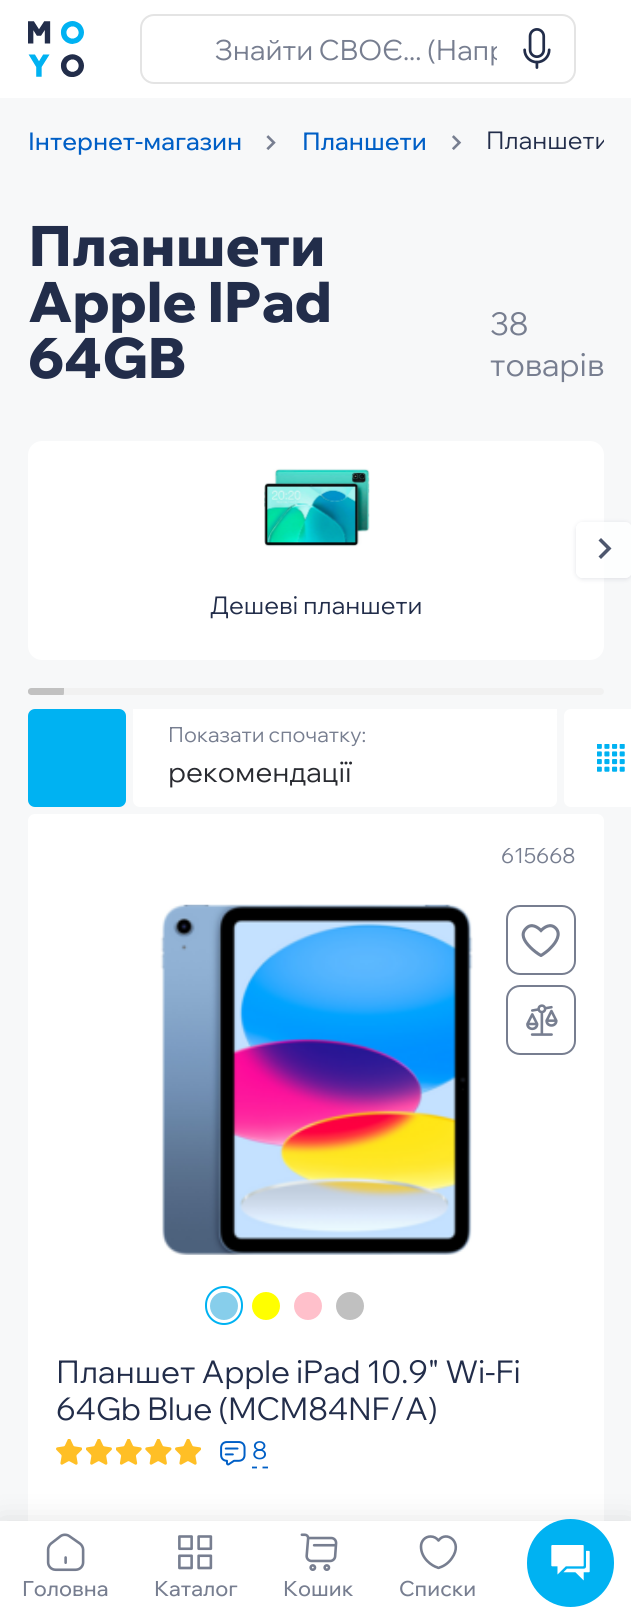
#include <cairo.h>
#include <math.h>
#include <stddef.h>

static cairo_t *c;
static void C(unsigned color){cairo_set_source_rgb(c, (color >> 16) / 255.0, (color >> 8 & 255) / 255.0, (color & 255) / 255.0);}
static void F(const char *family, double size, int italic, int bold){cairo_select_font_face(c, family, italic ? CAIRO_FONT_SLANT_ITALIC : CAIRO_FONT_SLANT_NORMAL,bold ? CAIRO_FONT_WEIGHT_BOLD : CAIRO_FONT_WEIGHT_NORMAL);cairo_set_font_size(c, size);}
static void T(double x, double y, const char *s){cairo_move_to(c, x, y);cairo_show_text(c, s);}
static void R(double x, double y, double w, double h){cairo_rectangle(c, x, y, w, h);cairo_fill(c);}
static void Q(double x, double y, double w, double h, double r){cairo_new_sub_path(c);cairo_arc(c, x + w - r, y + h - r, r, 0, M_PI / 2);cairo_arc(c, x + r, y + h - r, r, M_PI / 2, M_PI);cairo_arc(c, x + r, y + r, r, M_PI, 1.5 * M_PI);cairo_arc(c, x + w - r, y + r, r, 1.5 * M_PI, 2 * M_PI);cairo_close_path(c);}
static void S(double x, double y, double w, double h, double r, double blur, double alpha){cairo_push_group_with_content(c, CAIRO_CONTENT_ALPHA);cairo_set_operator(c, CAIRO_OPERATOR_SOURCE);for (int i = 15; i >= -15 && fmin(w, h) + blur * i / 3 > 0; i -= 2) {double e = blur * i / 6;cairo_set_source_rgba(c, 0, 0, 0, alpha * erfc((i - 1) / 8.5) / 2);Q(x - e, y - e, w + 2 * e, h + 2 * e, fmax(0, fmin(r + e + blur * .6, fmin(w, h) / 2 + e)));cairo_fill(c);}cairo_pattern_t *soft = cairo_pop_group(c);cairo_mask(c, soft);cairo_pattern_destroy(soft);}
static void I(const char *path, double x, double y, double w, double h){cairo_surface_t *image = cairo_image_surface_create_from_png(path);cairo_save(c);cairo_set_source_surface(c, image, x, y);cairo_rectangle(c, x, y, w, h);cairo_fill(c);cairo_restore(c);cairo_surface_destroy(image);}
int main(void) {
cairo_surface_t *surface = cairo_image_surface_create(CAIRO_FORMAT_RGB24, 631, 1624);
c = cairo_create(surface);
cairo_font_options_t *options = cairo_font_options_create();
cairo_font_options_set_hint_metrics(options, CAIRO_HINT_METRICS_OFF);
cairo_font_options_set_hint_style(options, CAIRO_HINT_STYLE_NONE);
cairo_set_font_options(c, options);
cairo_set_miter_limit(c, 4);
C(0xf7f8f9);
cairo_paint(c);
C(0xffffff);
R(0,0,631,98);
I("1.png",28,21,56,56);
Q(141,15,434,68,13);
C(0xe4e4e4);
cairo_stroke(c);
cairo_save(c);
cairo_rectangle(c,215,32,282,35);
cairo_clip(c);
F("Wix Madefor Display",28,0,0);
C(0x777e90);
T(215,60,"Знайти СВОЄ... (Напр");
cairo_restore(c);
I("2.png",523,28,28,41);
F("Wix Madefor Display Medium",24.5,0,0);
C(0x005fc6);
T(28,150,"Інтернет-магазин");
I("3.png",266,135,10,15);
T(302,150,"Планшети");
I("4.png",452,135,10,15);
cairo_save(c);
cairo_rectangle(c,28,126,576,35);
cairo_clip(c);
F("Wix Madefor Display",24.5,0,0);
C(0x222d4a);
T(486,149,"Планшети");
cairo_restore(c);
F("Wix Madefor Display ExtraBold",56,0,0);
C(0x222d4a);
T(28,266,"Планшети");
T(28,322,"Apple IPad");
T(28,378,"64GB");
F("Wix Madefor Display",31.5,0,0);
C(0x777e90);
T(490,335,"38");
T(490,376,"товарів");
C(0xffffff);
Q(28,441,576,219,14);
cairo_fill(c);
cairo_save(c);
cairo_set_fill_rule(c,CAIRO_FILL_RULE_EVEN_ODD);
cairo_new_path(c);
cairo_move_to(c,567,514);
cairo_line_to(c,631,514);
cairo_line_to(c,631,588);
cairo_line_to(c,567,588);
cairo_close_path(c);
cairo_move_to(c,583,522);
cairo_line_to(c,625,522);
cairo_curve_to(c,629,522,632,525,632,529);
cairo_line_to(c,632,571);
cairo_curve_to(c,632,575,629,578,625,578);
cairo_line_to(c,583,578);
cairo_curve_to(c,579,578,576,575,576,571);
cairo_line_to(c,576,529);
cairo_curve_to(c,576,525,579,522,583,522);
cairo_close_path(c);
cairo_clip(c);
C(0x222d4a);
S(576,523,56,56,7,2.5,.13);
cairo_restore(c);
cairo_set_source_rgba(c,1,1,1,0.8);
Q(576,522,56,56,7);
cairo_fill(c);
C(0x4e576e);
cairo_new_path(c);
cairo_move_to(c,598.5,556.5);
cairo_line_to(c,606.5,548.5);
cairo_line_to(c,598.5,540.5);
cairo_line_to(c,601,538);
cairo_line_to(c,611.5,548.5);
cairo_line_to(c,601,559);
cairo_close_path(c);
cairo_fill(c);
I("5.png",264,468,106,79);
F("Wix Madefor Display",24.5,0,0);
C(0x222d4a);
T(210,614,"Дешеві планшети");
C(0xf1f1f1);
Q(28,688,576,7,3.5);
cairo_fill(c);
cairo_save(c);
cairo_rectangle(c,28,441,576,254);
cairo_clip(c);
C(0xc1c1c1);
cairo_new_path(c);
cairo_move_to(c,31.5,688);
cairo_curve_to(c,28.5,688,27,691,28.5,693.5);
cairo_curve_to(c,30.5,696,34.5,695,36.5,695);
cairo_line_to(c,52.5,695);
cairo_curve_to(c,65,695,64,698,64,688);
cairo_close_path(c);
cairo_fill(c);
cairo_restore(c);
C(0x00b2f2);
Q(28,709,98,98,7);
cairo_fill(c);
C(0xffffff);
Q(133,709,424,98,7);
cairo_fill(c);
F("Wix Madefor Display",21,0,0);
C(0x777e90);
T(168,742,"Показати спочатку:");
C(0xffffff);
R(133,709,424,5);
F("Wix Madefor Display",28,0,0);
C(0x292b31);
T(168,782,"рекомендації");
C(0xffffff);
cairo_new_path(c);
cairo_move_to(c,571,709);
cairo_line_to(c,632,709);
cairo_line_to(c,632,807);
cairo_line_to(c,571,807);
cairo_curve_to(c,567,807,564,804,564,800);
cairo_line_to(c,564,716);
cairo_curve_to(c,564,712,567,709,571,709);
cairo_close_path(c);
cairo_fill(c);
I("6.png",597,744,28,28);
Q(28,814,576,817,7);
cairo_fill(c);
F("Wix Madefor Display",21,0,0);
C(0x777e90);
T(501,863,"615668");
I("7.png",160,904,313,351);
Q(507,906,68,68,13);
cairo_stroke(c);
cairo_new_path(c);
cairo_move_to(c,541,955.5);
cairo_curve_to(c,543.5,954,548.5,950.5,551,947.5);
cairo_curve_to(c,556.5,942,561,934,556,928.5);
cairo_curve_to(c,550.5,922.5,544,927.5,541,930.5);
cairo_curve_to(c,538,927.5,531.5,922.5,526,928.5);
cairo_curve_to(c,520.5,934,523.5,940.5,530.5,947.5);
cairo_curve_to(c,533.5,950.5,538,954,541,955.5);
cairo_set_line_width(c,3.1);
cairo_set_line_cap(c,CAIRO_LINE_CAP_ROUND);
cairo_stroke(c);
Q(507,986,68,68,13);
cairo_set_line_width(c,2);
cairo_set_line_cap(c,CAIRO_LINE_CAP_BUTT);
cairo_stroke(c);
I("8.png",526,1004,32,32);
C(0x87ceeb);
cairo_arc(c,224,1306,14,0,2 * M_PI);
cairo_fill(c);
Q(206,1287,36,37,18);
C(0x00b2f2);
cairo_stroke(c);
C(0xffff00);
cairo_arc(c,266,1306,14,0,2 * M_PI);
cairo_fill(c);
C(0xffc0cb);
cairo_arc(c,308,1306,14,0,2 * M_PI);
cairo_fill(c);
C(0xc0c0c0);
cairo_arc(c,350,1306,14,0,2 * M_PI);
cairo_fill(c);
F("Wix Madefor Display",31.5,0,0);
C(0x222d4a);
T(56,1383,"Планшет Apple iPad 10.9\" Wi-Fi");
T(56,1420,"64Gb Blue (MCM84NF/A)");
I("9.png",56,1439,26,26);
I("10.png",86,1439,26,26);
I("11.png",116,1439,26,26);
I("12.png",145,1439,27,26);
I("9.png",175,1439,26,26);
I("13.png",220,1441,26,25);
cairo_new_path(c);
cairo_move_to(c,252,1467.5);
cairo_line_to(c,257,1467.5);
cairo_move_to(c,262.5,1467.5);
cairo_line_to(c,268,1467.5);
C(0x005fc6);
cairo_set_line_width(c,1.8);
cairo_stroke(c);
F("Wix Madefor Display",24.5,0,0);
T(252,1459,"8");
C(0x000000);
S(0,1523,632,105,0,16,.12);
C(0xffffff);
R(0,1521,631,103);
I("14.png",46,1533,39,39);
F("Wix Madefor Display Medium",21,0,0);
C(0x777e90);
T(22,1596,"Головна");
I("15.png",178,1535,35,35);
T(154,1596,"Каталог");
I("16.png",300,1533,38,38);
T(283,1596,"Кошик");
cairo_new_path(c);
cairo_move_to(c,439.5,1567.5);
cairo_curve_to(c,439,1568,438,1568,437.5,1567.5);
cairo_curve_to(c,432,1566,421,1558.5,421,1546.5);
cairo_curve_to(c,421,1541,425,1536.5,430.5,1536.5);
cairo_curve_to(c,434,1536.5,436.5,1538,438.5,1540.5);
cairo_curve_to(c,446,1530,463.5,1541.5,452,1558);
cairo_curve_to(c,449,1562.5,444.5,1566,439.5,1567.5);
cairo_close_path(c);
cairo_set_line_width(c,2.6);
cairo_set_line_cap(c,CAIRO_LINE_CAP_ROUND);
cairo_set_line_join(c,CAIRO_LINE_JOIN_ROUND);
cairo_stroke(c);
T(399,1596,"Списки");
C(0x00b2f2);
Q(527,1519,87,88,43.5);
cairo_fill(c);
I("17.png",551,1545,39,36);
cairo_surface_write_to_png(surface, "o.png");
cairo_font_options_destroy(options);
cairo_destroy(c);
cairo_surface_destroy(surface);
return 0;
}
